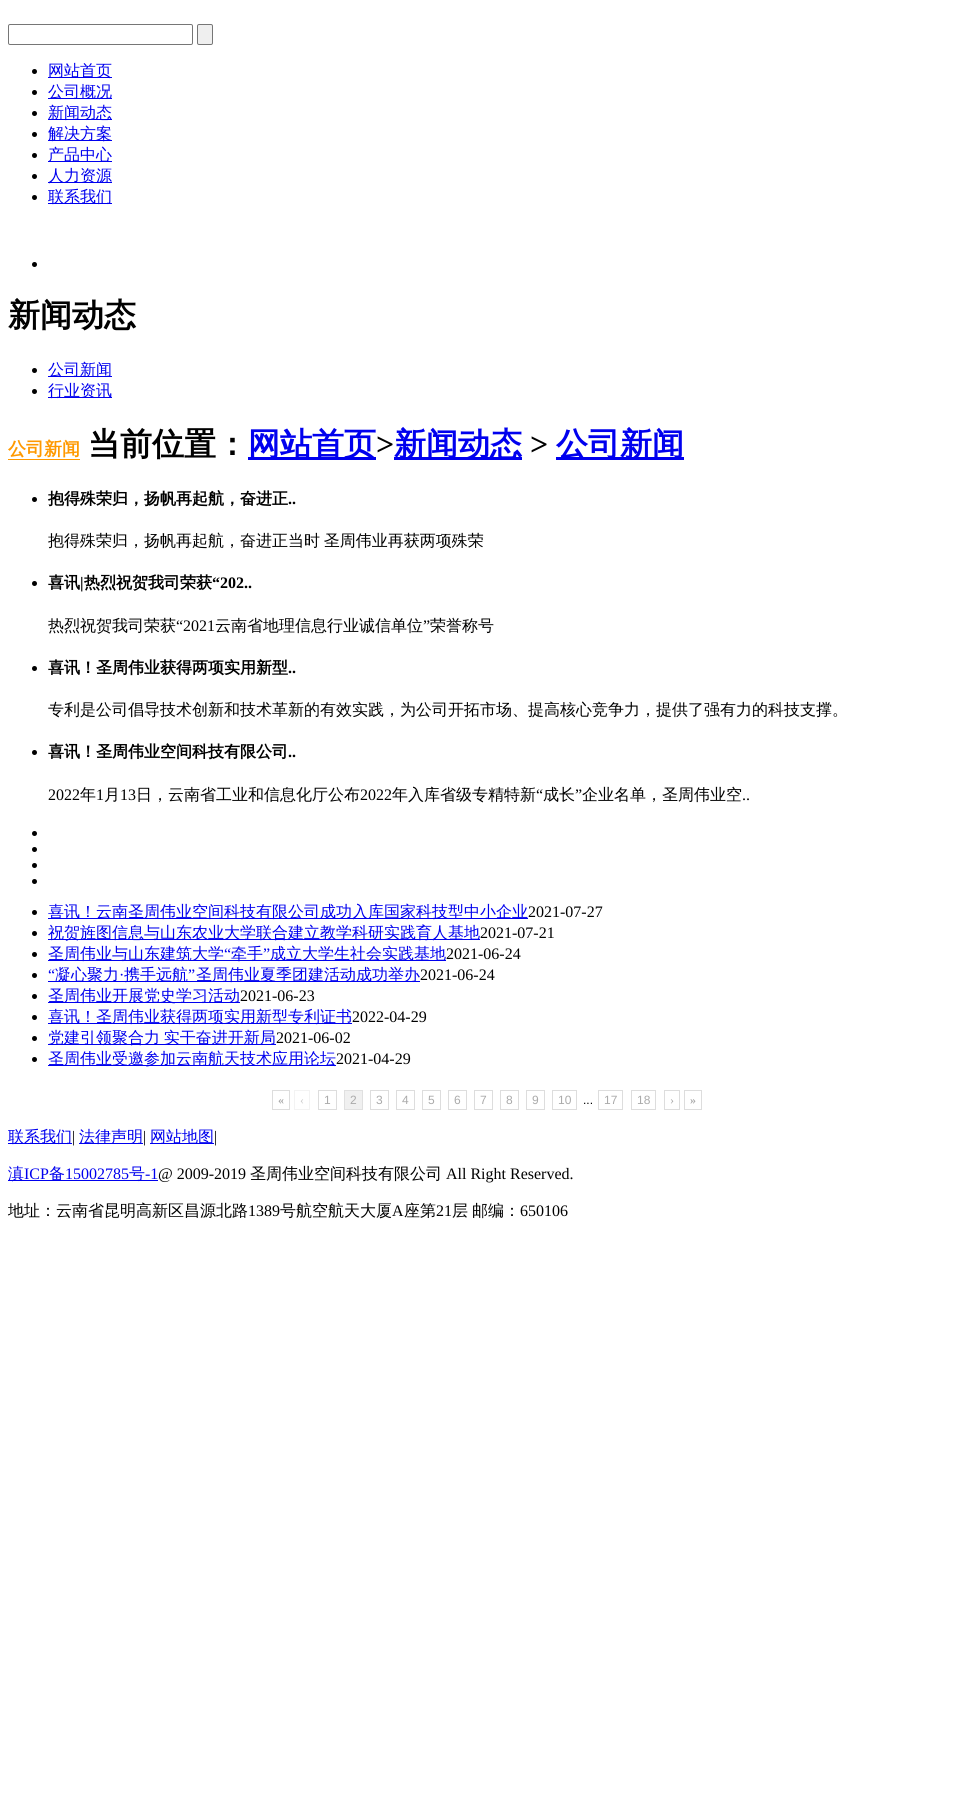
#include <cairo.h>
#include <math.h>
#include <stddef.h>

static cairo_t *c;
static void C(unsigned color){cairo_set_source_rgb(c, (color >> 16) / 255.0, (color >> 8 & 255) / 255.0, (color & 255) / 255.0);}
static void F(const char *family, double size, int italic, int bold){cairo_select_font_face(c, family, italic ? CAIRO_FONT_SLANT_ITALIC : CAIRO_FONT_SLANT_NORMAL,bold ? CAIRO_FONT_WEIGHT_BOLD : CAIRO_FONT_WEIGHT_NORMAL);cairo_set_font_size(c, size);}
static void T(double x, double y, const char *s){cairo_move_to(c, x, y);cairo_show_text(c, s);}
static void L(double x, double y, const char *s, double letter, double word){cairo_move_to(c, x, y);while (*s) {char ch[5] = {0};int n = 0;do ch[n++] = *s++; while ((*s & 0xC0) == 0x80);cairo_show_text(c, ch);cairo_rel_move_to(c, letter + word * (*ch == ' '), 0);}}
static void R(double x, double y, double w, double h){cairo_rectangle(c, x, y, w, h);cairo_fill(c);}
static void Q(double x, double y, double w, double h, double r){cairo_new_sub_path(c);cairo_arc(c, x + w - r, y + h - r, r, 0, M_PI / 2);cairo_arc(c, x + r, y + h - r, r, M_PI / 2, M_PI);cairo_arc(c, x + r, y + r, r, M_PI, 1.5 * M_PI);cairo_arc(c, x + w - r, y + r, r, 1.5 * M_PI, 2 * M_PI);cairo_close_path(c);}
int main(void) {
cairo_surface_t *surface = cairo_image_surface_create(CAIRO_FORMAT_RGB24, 974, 1818);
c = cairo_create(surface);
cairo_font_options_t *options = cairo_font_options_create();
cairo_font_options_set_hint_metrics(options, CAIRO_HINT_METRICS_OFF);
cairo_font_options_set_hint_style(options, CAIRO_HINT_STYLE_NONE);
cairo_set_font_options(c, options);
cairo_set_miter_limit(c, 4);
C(0xffffff);
cairo_paint(c);
Q(8.5,24.5,184,20,1.5);
C(0x767676);
cairo_set_line_width(c,1);
cairo_stroke(c);
C(0xefefef);
Q(197.5,24.5,15,20,1.5);
cairo_fill_preserve(c);
C(0x767676);
cairo_stroke(c);
C(0x000000);
cairo_arc(c,34.5,71.5,2.5,0,2 * M_PI);
cairo_fill(c);
C(0x0000ee);
R(48,77,64,1);
F("WenQuanYi Zen Hei Medium",16,0,0);
T(48,76,"网站首页");
C(0x000000);
cairo_new_path(c);
cairo_arc(c,34.5,92.5,2.5,0,2 * M_PI);
cairo_fill(c);
C(0x0000ee);
R(48,98,64,1);
T(48,97,"公司概况");
C(0x000000);
cairo_new_path(c);
cairo_arc(c,34.5,113.5,2.5,0,2 * M_PI);
cairo_fill(c);
C(0x0000ee);
R(48,119,64,1);
T(48,118,"新闻动态");
C(0x000000);
cairo_new_path(c);
cairo_arc(c,34.5,134.5,2.5,0,2 * M_PI);
cairo_fill(c);
C(0x0000ee);
R(48,140,64,1);
T(48,139,"解决方案");
C(0x000000);
cairo_new_path(c);
cairo_arc(c,34.5,155.5,2.5,0,2 * M_PI);
cairo_fill(c);
C(0x0000ee);
R(48,161,64,1);
T(48,160,"产品中心");
C(0x000000);
cairo_new_path(c);
cairo_arc(c,34.5,176.5,2.5,0,2 * M_PI);
cairo_fill(c);
C(0x0000ee);
R(48,182,64,1);
T(48,181,"人力资源");
C(0x000000);
cairo_new_path(c);
cairo_arc(c,34.5,197.5,2.5,0,2 * M_PI);
cairo_fill(c);
C(0x0000ee);
R(48,203,64,1);
T(48,202,"联系我们");
C(0x000000);
cairo_new_path(c);
cairo_arc(c,34.5,264.5,2.5,0,2 * M_PI);
cairo_fill(c);
F("WenQuanYi Zen Hei",32,0,1);
T(8,326,"新闻动态");
cairo_new_path(c);
cairo_arc(c,34.5,370.5,2.5,0,2 * M_PI);
cairo_fill(c);
C(0x0000ee);
R(48,376,64,1);
F("WenQuanYi Zen Hei Medium",16,0,0);
T(48,375,"公司新闻");
C(0x000000);
cairo_new_path(c);
cairo_arc(c,34.5,391.5,2.5,0,2 * M_PI);
cairo_fill(c);
C(0x0000ee);
R(48,397,64,1);
T(48,396,"行业资讯");
F("WenQuanYi Zen Hei",18,0,1);
C(0xff9900);
T(8,455,"公司新闻");
R(8,459,72,1);
F("WenQuanYi Zen Hei",32,0,1);
C(0x000000);
T(88,455,"当前位置：");
C(0x0000ee);
R(248,457,128,3);
T(248,455,"网站首页");
F("Liberation Serif",32,0,1);
C(0x000000);
T(376,455,">");
C(0x0000ee);
R(394,457,128,3);
F("WenQuanYi Zen Hei",32,0,1);
T(394,455,"新闻动态");
F("Liberation Serif",32,0,1);
C(0x000000);
T(530,455,">");
C(0x0000ee);
R(556,457,128,3);
F("WenQuanYi Zen Hei",32,0,1);
T(556,455,"公司新闻");
C(0x000000);
cairo_new_path(c);
cairo_arc(c,34.5,499.5,2.5,0,2 * M_PI);
cairo_fill(c);
F("WenQuanYi Zen Hei",16,0,1);
T(48,504,"抱得殊荣归，扬帆再起航，奋进正");
F("Liberation Serif",16,0,1);
T(288,504,"..");
F("WenQuanYi Zen Hei Medium",16,0,0);
L(48,546,"抱得殊荣归，扬帆再起航，奋进正当时 圣周伟业再获两项殊荣",0,-1);
cairo_new_path(c);
cairo_arc(c,34.5,583.5,2.5,0,2 * M_PI);
cairo_fill(c);
F("WenQuanYi Zen Hei",16,0,1);
T(48,588,"喜讯");
F("Liberation Serif",16,0,1);
T(80,588,"|");
F("WenQuanYi Zen Hei",16,0,1);
T(84,588,"热烈祝贺我司荣获");
F("Liberation Serif",16,0,1);
T(212,588,"“202..");
F("WenQuanYi Zen Hei Medium",16,0,0);
T(48,631,"热烈祝贺我司荣获");
F("Liberation Serif",16,0,0);
T(176,631,"“2021");
F("WenQuanYi Zen Hei Medium",16,0,0);
T(215,631,"云南省地理信息行业诚信单位");
F("Liberation Serif",16,0,0);
T(423,631,"”");
F("WenQuanYi Zen Hei Medium",16,0,0);
T(430,631,"荣誉称号");
cairo_new_path(c);
cairo_arc(c,34.5,668.5,2.5,0,2 * M_PI);
cairo_fill(c);
F("WenQuanYi Zen Hei",16,0,1);
T(48,673,"喜讯！圣周伟业获得两项实用新型");
F("Liberation Serif",16,0,1);
T(288,673,"..");
F("WenQuanYi Zen Hei Medium",16,0,0);
T(48,715,"专利是公司倡导技术创新和技术革新的有效实践，为公司开拓市场、提高核心竞争力，提供了强有力的科技支撑。");
cairo_new_path(c);
cairo_arc(c,34.5,752.5,2.5,0,2 * M_PI);
cairo_fill(c);
F("WenQuanYi Zen Hei",16,0,1);
T(48,757,"喜讯！圣周伟业空间科技有限公司");
F("Liberation Serif",16,0,1);
T(288,757,"..");
F("Liberation Serif",16,0,0);
T(48,800,"2022");
F("WenQuanYi Zen Hei Medium",16,0,0);
T(80,800,"年");
F("Liberation Serif",16,0,0);
T(96,800,"1");
F("WenQuanYi Zen Hei Medium",16,0,0);
T(104,800,"月");
F("Liberation Serif",16,0,0);
T(120,800,"13");
F("WenQuanYi Zen Hei Medium",16,0,0);
T(136,800,"日，云南省工业和信息化厅公布");
F("Liberation Serif",16,0,0);
T(360,800,"2022");
F("WenQuanYi Zen Hei Medium",16,0,0);
T(392,800,"年入库省级专精特新");
F("Liberation Serif",16,0,0);
T(536,800,"“");
F("WenQuanYi Zen Hei Medium",16,0,0);
T(543,800,"成长");
F("Liberation Serif",16,0,0);
T(575,800,"”");
F("WenQuanYi Zen Hei Medium",16,0,0);
T(582,800,"企业名单，圣周伟业空");
F("Liberation Serif",16,0,0);
T(742,800,"..");
cairo_new_path(c);
cairo_arc(c,34.5,833.5,2.5,0,2 * M_PI);
cairo_fill(c);
cairo_arc(c,34.5,849.5,2.5,0,2 * M_PI);
cairo_fill(c);
cairo_arc(c,34.5,865.5,2.5,0,2 * M_PI);
cairo_fill(c);
cairo_arc(c,34.5,881.5,2.5,0,2 * M_PI);
cairo_fill(c);
cairo_arc(c,34.5,912.5,2.5,0,2 * M_PI);
cairo_fill(c);
C(0x0000ee);
R(48,918,480,1);
F("WenQuanYi Zen Hei Medium",16,0,0);
T(48,917,"喜讯！云南圣周伟业空间科技有限公司成功入库国家科技型中小企业");
F("Liberation Serif",16,0,0);
C(0x000000);
T(528,917,"2021-07-27");
cairo_new_path(c);
cairo_arc(c,34.5,933.5,2.5,0,2 * M_PI);
cairo_fill(c);
C(0x0000ee);
R(48,939,432,1);
F("WenQuanYi Zen Hei Medium",16,0,0);
T(48,938,"祝贺旌图信息与山东农业大学联合建立教学科研实践育人基地");
F("Liberation Serif",16,0,0);
C(0x000000);
T(480,938,"2021-07-21");
cairo_new_path(c);
cairo_arc(c,34.5,954.5,2.5,0,2 * M_PI);
cairo_fill(c);
C(0x0000ee);
R(48,960,398,1);
F("WenQuanYi Zen Hei Medium",16,0,0);
T(48,959,"圣周伟业与山东建筑大学");
F("Liberation Serif",16,0,0);
T(224,959,"“");
F("WenQuanYi Zen Hei Medium",16,0,0);
T(231,959,"牵手");
F("Liberation Serif",16,0,0);
T(263,959,"”");
F("WenQuanYi Zen Hei Medium",16,0,0);
T(270,959,"成立大学生社会实践基地");
F("Liberation Serif",16,0,0);
C(0x000000);
T(446,959,"2021-06-24");
cairo_new_path(c);
cairo_arc(c,34.5,975.5,2.5,0,2 * M_PI);
cairo_fill(c);
C(0x0000ee);
T(48,980,"“");
R(48,981,372,1);
F("WenQuanYi Zen Hei Medium",16,0,0);
T(55,980,"凝心聚力");
F("Liberation Serif",16,0,0);
T(119,980,"·");
F("WenQuanYi Zen Hei Medium",16,0,0);
T(124,980,"携手远航");
F("Liberation Serif",16,0,0);
T(188,980,"”");
F("WenQuanYi Zen Hei Medium",16,0,0);
T(196,980,"圣周伟业夏季团建活动成功举办");
F("Liberation Serif",16,0,0);
C(0x000000);
T(420,980,"2021-06-24");
cairo_new_path(c);
cairo_arc(c,34.5,996.5,2.5,0,2 * M_PI);
cairo_fill(c);
C(0x0000ee);
R(48,1002,192,1);
F("WenQuanYi Zen Hei Medium",16,0,0);
T(48,1001,"圣周伟业开展党史学习活动");
F("Liberation Serif",16,0,0);
C(0x000000);
T(240,1001,"2021-06-23");
cairo_new_path(c);
cairo_arc(c,34.5,1017.5,2.5,0,2 * M_PI);
cairo_fill(c);
C(0x0000ee);
R(48,1023,304,1);
F("WenQuanYi Zen Hei Medium",16,0,0);
T(48,1022,"喜讯！圣周伟业获得两项实用新型专利证书");
F("Liberation Serif",16,0,0);
C(0x000000);
T(352,1022,"2022-04-29");
cairo_new_path(c);
cairo_arc(c,34.5,1038.5,2.5,0,2 * M_PI);
cairo_fill(c);
C(0x0000ee);
R(48,1044,228,1);
F("WenQuanYi Zen Hei Medium",16,0,0);
L(48,1043,"党建引领聚合力 实干奋进开新局",0,-1);
F("Liberation Serif",16,0,0);
C(0x000000);
T(276,1043,"2021-06-02");
cairo_new_path(c);
cairo_arc(c,34.5,1059.5,2.5,0,2 * M_PI);
cairo_fill(c);
C(0x0000ee);
R(48,1065,288,1);
F("WenQuanYi Zen Hei Medium",16,0,0);
T(48,1064,"圣周伟业受邀参加云南航天技术应用论坛");
F("Liberation Serif",16,0,0);
C(0x000000);
T(336,1064,"2021-04-29");
cairo_rectangle(c,272.5,1090.5,17,19);
C(0xdddddd);
cairo_stroke(c);
F("Liberation Serif",12,0,1);
C(0xaaaaaa);
T(278,1104,"«");
cairo_rectangle(c,294.5,1090.5,15,19);
C(0xf3f3f3);
cairo_stroke(c);
F("Liberation Serif",12,0,0);
C(0xcccccc);
T(300,1104,"‹");
cairo_rectangle(c,318.5,1090.5,18,19);
C(0xdddddd);
cairo_stroke(c);
F("Liberation Sans",12,0,0);
C(0xaaaaaa);
T(324,1104,"1");
C(0xf0f0f0);
cairo_rectangle(c,344.5,1090.5,18,19);
cairo_fill_preserve(c);
C(0xe0e0e0);
cairo_stroke(c);
C(0xaaaaaa);
T(350,1104,"2");
cairo_rectangle(c,370.5,1090.5,18,19);
C(0xdddddd);
cairo_stroke(c);
C(0xaaaaaa);
T(376,1104,"3");
cairo_rectangle(c,396.5,1090.5,18,19);
C(0xdddddd);
cairo_stroke(c);
C(0xaaaaaa);
T(402,1104,"4");
cairo_rectangle(c,422.5,1090.5,18,19);
C(0xdddddd);
cairo_stroke(c);
C(0xaaaaaa);
T(428,1104,"5");
cairo_rectangle(c,448.5,1090.5,18,19);
C(0xdddddd);
cairo_stroke(c);
C(0xaaaaaa);
T(454,1104,"6");
cairo_rectangle(c,474.5,1090.5,18,19);
C(0xdddddd);
cairo_stroke(c);
C(0xaaaaaa);
T(480,1104,"7");
cairo_rectangle(c,500.5,1090.5,18,19);
C(0xdddddd);
cairo_stroke(c);
C(0xaaaaaa);
T(506,1104,"8");
cairo_rectangle(c,526.5,1090.5,18,19);
C(0xdddddd);
cairo_stroke(c);
C(0xaaaaaa);
T(532,1104,"9");
cairo_rectangle(c,552.5,1090.5,24,19);
C(0xdddddd);
cairo_stroke(c);
C(0xaaaaaa);
T(558,1104,"10");
C(0x000000);
T(583,1104,"...");
cairo_rectangle(c,598.5,1090.5,24,19);
C(0xdddddd);
cairo_stroke(c);
C(0xaaaaaa);
T(604,1104,"17");
cairo_rectangle(c,631.5,1090.5,24,19);
C(0xdddddd);
cairo_stroke(c);
C(0xaaaaaa);
T(637,1104,"18");
cairo_rectangle(c,664.5,1090.5,15,19);
C(0xdddddd);
cairo_stroke(c);
F("Liberation Serif",12,0,0);
C(0xaaaaaa);
T(670,1104,"›");
cairo_rectangle(c,684.5,1090.5,17,19);
C(0xdddddd);
cairo_stroke(c);
F("Liberation Serif",12,0,1);
C(0xaaaaaa);
T(690,1104,"»");
C(0x0000ee);
R(8,1143,64,1);
F("WenQuanYi Zen Hei Medium",16,0,0);
T(8,1142,"联系我们");
F("Liberation Serif",16,0,0);
C(0x000000);
T(72,1142,"|");
C(0x0000ee);
R(79,1143,64,1);
F("WenQuanYi Zen Hei Medium",16,0,0);
T(79,1142,"法律声明");
F("Liberation Serif",16,0,0);
C(0x000000);
T(143,1142,"|");
C(0x0000ee);
R(150,1143,64,1);
F("WenQuanYi Zen Hei Medium",16,0,0);
T(150,1142,"网站地图");
F("Liberation Serif",16,0,0);
C(0x000000);
T(214,1142,"|");
C(0x0000ee);
R(8,1180,150,1);
F("WenQuanYi Zen Hei Medium",16,0,0);
T(8,1179,"滇");
F("Liberation Serif",16,0,0);
T(24,1179,"ICP");
F("WenQuanYi Zen Hei Medium",16,0,0);
T(49,1179,"备");
F("Liberation Serif",16,0,0);
T(65,1179,"15002785");
F("WenQuanYi Zen Hei Medium",16,0,0);
T(129,1179,"号");
F("Liberation Serif",16,0,0);
T(145,1179,"-1");
C(0x000000);
T(158,1179,"@ 2009-2019");
F("WenQuanYi Zen Hei Medium",16,0,0);
T(250,1179,"圣周伟业空间科技有限公司");
F("Liberation Serif",16,0,0);
T(446,1179,"All Right Reserved.");
F("WenQuanYi Zen Hei Medium",16,0,0);
T(8,1216,"地址：云南省昆明高新区昌源北路");
F("Liberation Serif",16,0,0);
T(248,1216,"1389");
F("WenQuanYi Zen Hei Medium",16,0,0);
T(280,1216,"号航空航天大厦");
F("Liberation Serif",16,0,0);
T(392,1216,"A");
F("WenQuanYi Zen Hei Medium",16,0,0);
T(404,1216,"座第");
F("Liberation Serif",16,0,0);
T(436,1216,"21");
F("WenQuanYi Zen Hei Medium",16,0,0);
T(452,1216,"层");
T(472,1216,"邮编：");
F("Liberation Serif",16,0,0);
T(520,1216,"650106");
cairo_surface_write_to_png(surface, "o.png");
cairo_font_options_destroy(options);
cairo_destroy(c);
cairo_surface_destroy(surface);
return 0;
}
